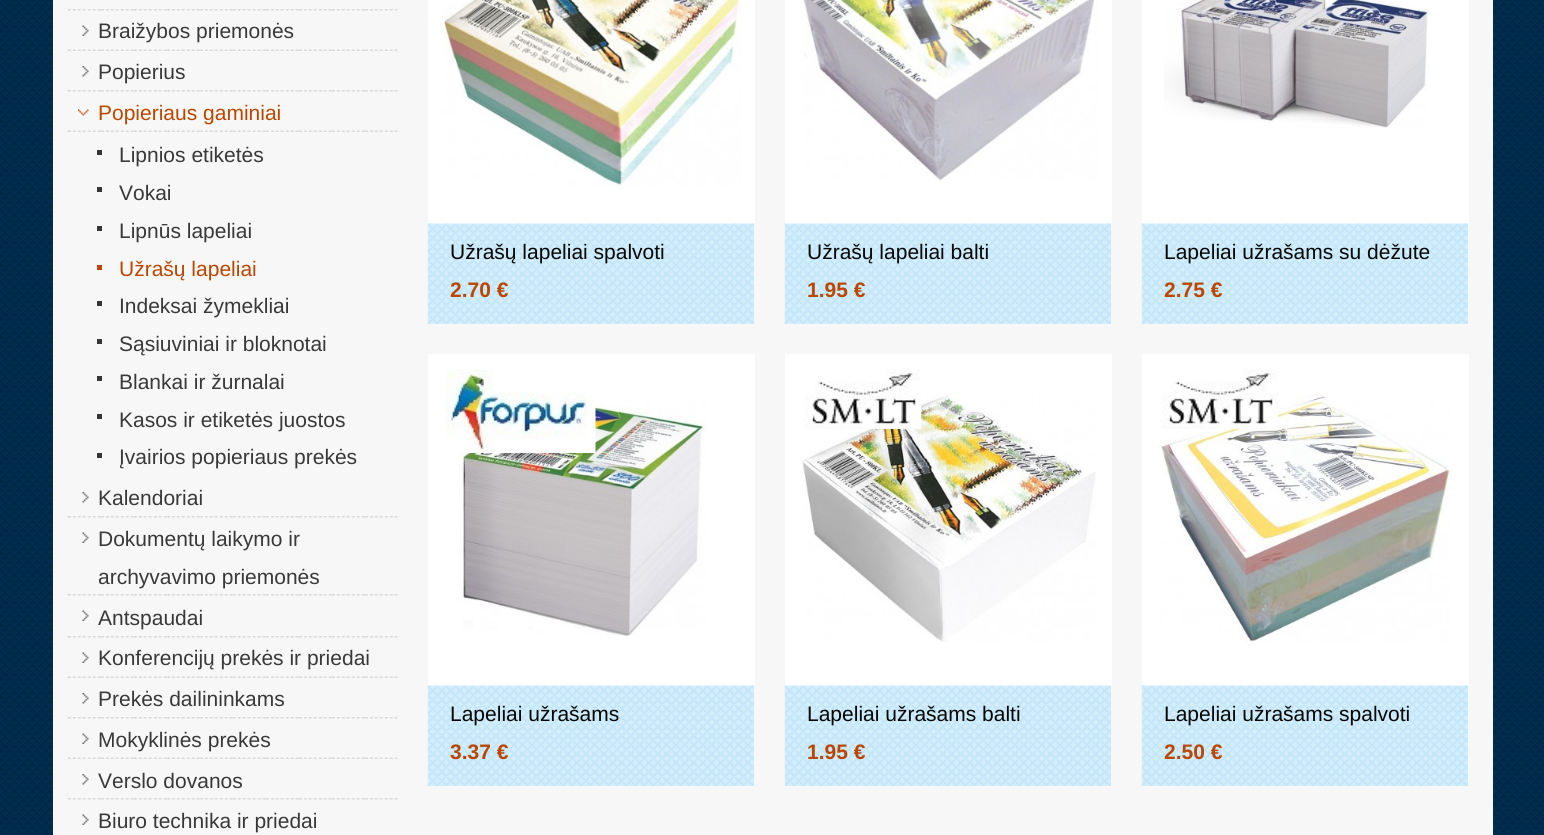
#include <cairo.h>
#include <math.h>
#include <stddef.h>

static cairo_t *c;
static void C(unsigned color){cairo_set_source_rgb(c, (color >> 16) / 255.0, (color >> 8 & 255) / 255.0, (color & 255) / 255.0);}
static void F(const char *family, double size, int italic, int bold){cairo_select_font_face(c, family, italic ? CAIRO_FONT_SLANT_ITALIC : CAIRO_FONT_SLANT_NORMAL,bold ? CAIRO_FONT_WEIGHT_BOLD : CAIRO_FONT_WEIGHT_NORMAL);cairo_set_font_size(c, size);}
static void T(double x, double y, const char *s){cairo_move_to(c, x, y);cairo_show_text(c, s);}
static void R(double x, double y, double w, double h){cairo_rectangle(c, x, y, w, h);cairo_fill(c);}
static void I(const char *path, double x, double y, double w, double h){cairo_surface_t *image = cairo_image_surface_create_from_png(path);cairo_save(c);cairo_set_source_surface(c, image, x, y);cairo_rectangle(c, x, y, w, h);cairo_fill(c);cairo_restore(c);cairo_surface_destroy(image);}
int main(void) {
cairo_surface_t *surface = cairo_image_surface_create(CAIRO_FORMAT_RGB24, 1544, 835);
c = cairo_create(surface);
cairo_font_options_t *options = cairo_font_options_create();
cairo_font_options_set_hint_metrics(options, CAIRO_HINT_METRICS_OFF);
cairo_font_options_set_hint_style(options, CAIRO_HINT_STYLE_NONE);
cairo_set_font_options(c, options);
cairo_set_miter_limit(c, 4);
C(0xffffff);
cairo_paint(c);
I("1.png",0,0,1544,835);
C(0xf7f7f7);
R(53,0,1440,835);
I("2.png",67,9,331,2);
I("3.png",82,25,7,11);
I("4.png",67,49,331,2);
F("Liberation Sans",21,0,0);
C(0x393939);
T(98,38,"Braižybos priemonės");
I("5.png",82,66,7,11);
I("6.png",67,90,331,2);
T(98,79,"Popierius");
I("7.png",78,109,11,7);
I("4.png",67,130,331,2);
C(0xba4600);
T(98,120,"Popieriaus gaminiai");
C(0x363636);
R(97,150,5,5);
C(0x393939);
T(119,162,"Lipnios etiketės");
C(0x363636);
R(97,187,5,5);
C(0x393939);
T(119,200,"Vokai");
C(0x363636);
R(97,226,5,5);
C(0x393939);
T(119,238,"Lipnūs lapeliai");
C(0xba4600);
R(97,265,5,5);
T(119,276,"Užrašų lapeliai");
C(0x363636);
R(97,301,5,5);
C(0x393939);
T(119,313,"Indeksai žymekliai");
C(0x363636);
R(97,339,5,5);
C(0x393939);
T(119,351,"Sąsiuviniai ir bloknotai");
C(0x363636);
R(97,376,5,5);
C(0x393939);
T(119,389,"Blankai ir žurnalai");
C(0x363636);
R(97,414,5,5);
C(0x393939);
T(119,427,"Kasos ir etiketės juostos");
C(0x363636);
R(97,453,5,5);
C(0x393939);
T(119,464,"Įvairios popieriaus prekės");
I("5.png",82,492,7,11);
I("6.png",67,516,331,2);
T(98,505,"Kalendoriai");
I("3.png",82,532,7,11);
I("6.png",67,594,331,2);
T(98,546,"Dokumentų laikymo ir");
T(98,584,"archyvavimo priemonės");
I("3.png",82,610,7,11);
I("2.png",67,636,331,2);
T(98,625,"Antspaudai");
I("3.png",82,652,7,11);
I("4.png",67,676,331,2);
T(98,665,"Konferencijų prekės ir priedai");
I("5.png",82,693,7,11);
I("6.png",67,717,331,2);
T(98,706,"Prekės dailininkams");
I("3.png",82,733,7,11);
I("8.png",67,757,331,2);
T(98,747,"Mokyklinės prekės");
I("5.png",82,774,7,11);
I("2.png",67,798,331,2);
T(98,788,"Verslo dovanos");
I("3.png",82,814,7,11);
T(98,828,"Biuro technika ir priedai");
C(0xffffff);
R(428,0,327,324);
I("9.png",442,0,300,186);
I("10.png",427,223,328,101);
C(0x060806);
T(450,259,"Užrašų lapeliai spalvoti");
F("Liberation Sans",21,0,1);
C(0xba4600);
T(450,297,"2.70 €");
C(0xffffff);
R(785,0,327,324);
I("11.png",801,0,297,181);
I("10.png",784,223,328,101);
F("Liberation Sans",21,0,0);
C(0x060806);
T(807,259,"Užrašų lapeliai balti");
F("Liberation Sans",21,0,1);
C(0xba4600);
T(807,297,"1.95 €");
C(0xffffff);
R(1142,0,327,324);
I("12.png",1164,0,264,128);
I("13.png",1141,223,328,101);
F("Liberation Sans",21,0,0);
C(0x060806);
T(1164,259,"Lapeliai užrašams su dėžute");
F("Liberation Sans",21,0,1);
C(0xba4600);
T(1164,297,"2.75 €");
C(0xffffff);
R(428,354,327,432);
I("15.png",456,394,252,242);
I("14.png",445,369,151,84);
I("10.png",427,685,328,101);
F("Liberation Sans",21,0,0);
C(0x060806);
T(450,721,"Lapeliai užrašams");
F("Liberation Sans",21,0,1);
C(0xba4600);
T(450,759,"3.37 €");
C(0xffffff);
R(785,354,327,432);
I("17.png",800,394,296,248);
I("16.png",804,369,117,60);
I("10.png",784,685,328,101);
F("Liberation Sans",21,0,0);
C(0x060806);
T(807,721,"Lapeliai užrašams balti");
F("Liberation Sans",21,0,1);
C(0xba4600);
T(807,759,"1.95 €");
C(0xffffff);
R(1142,354,327,432);
I("19.png",1157,394,295,249);
I("18.png",1161,369,117,60);
I("13.png",1141,685,328,101);
F("Liberation Sans",21,0,0);
C(0x060806);
T(1164,721,"Lapeliai užrašams spalvoti");
F("Liberation Sans",21,0,1);
C(0xba4600);
T(1164,759,"2.50 €");
cairo_surface_write_to_png(surface, "o.png");
cairo_font_options_destroy(options);
cairo_destroy(c);
cairo_surface_destroy(surface);
return 0;
}
